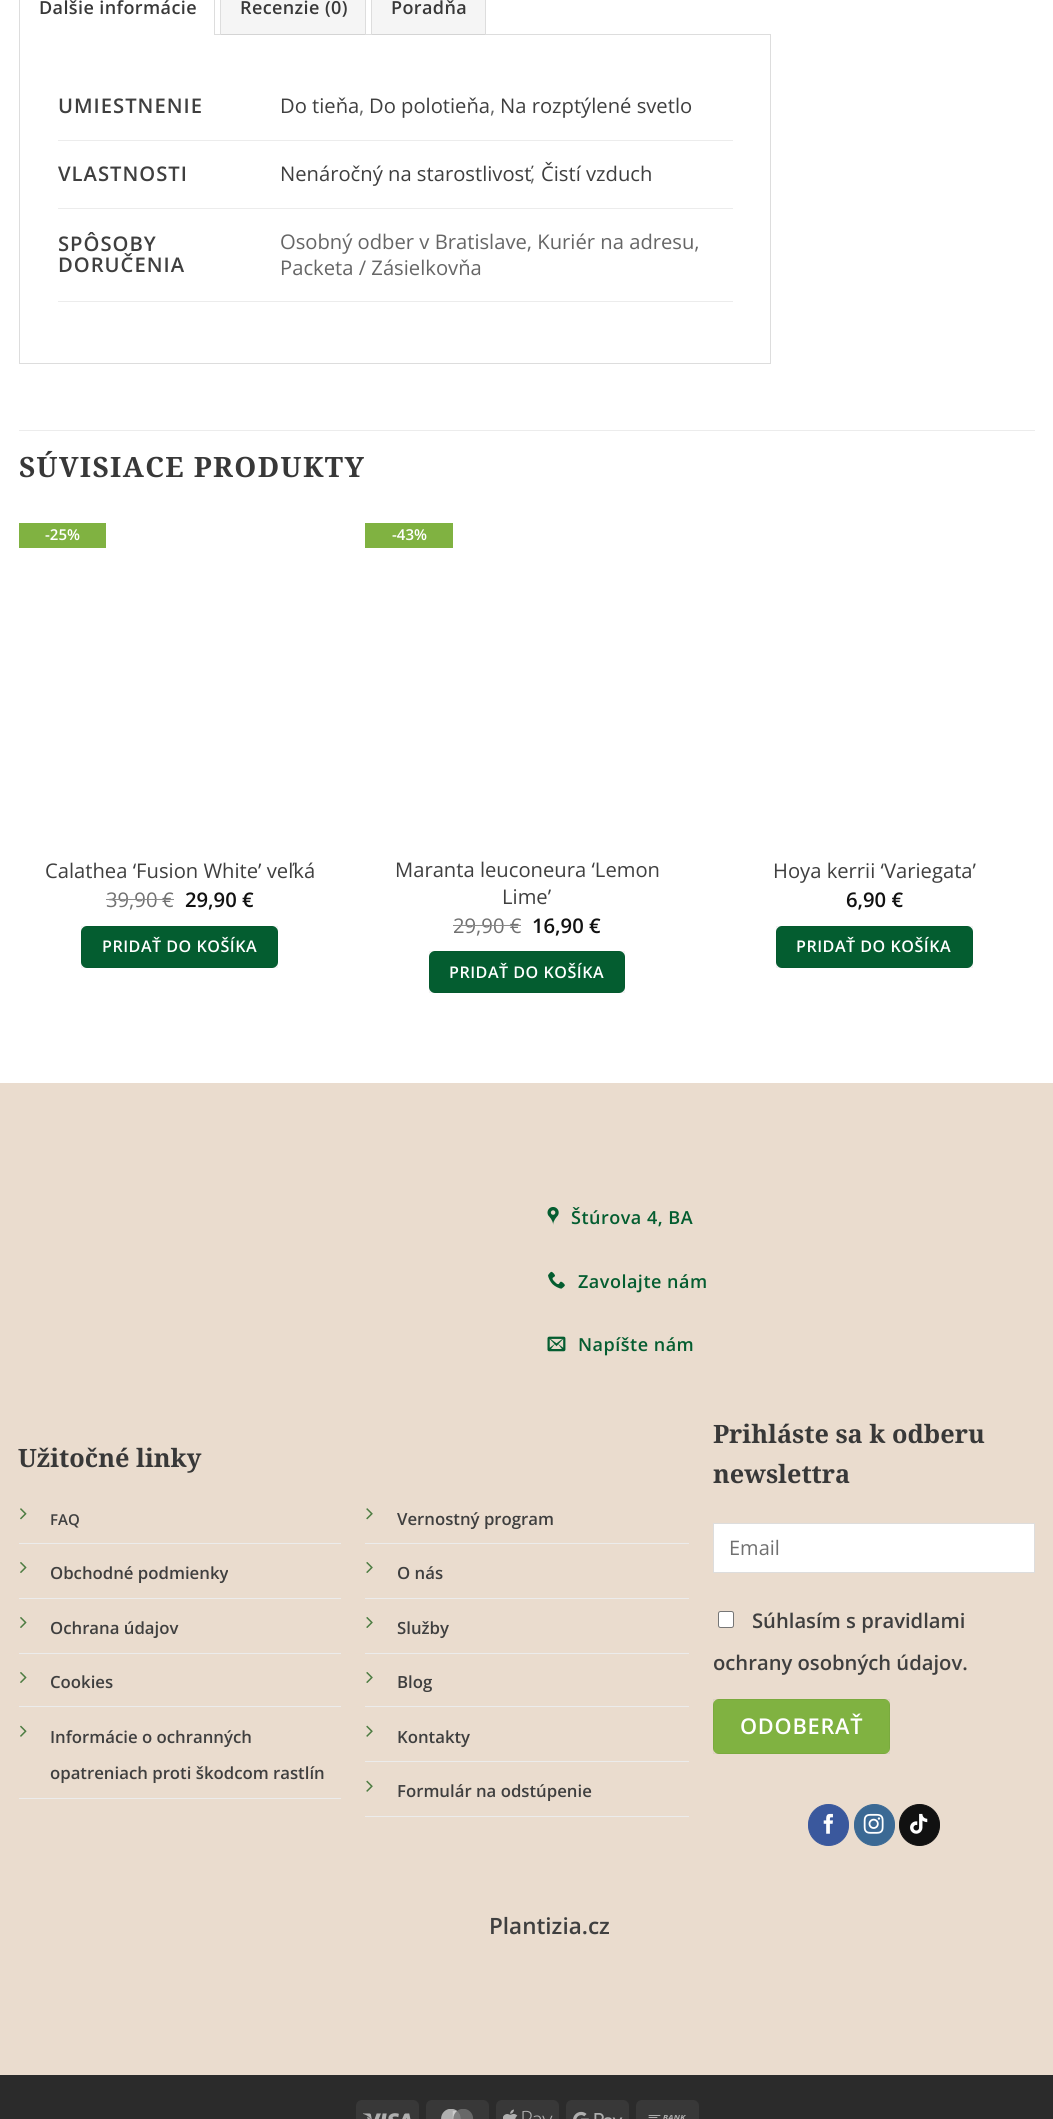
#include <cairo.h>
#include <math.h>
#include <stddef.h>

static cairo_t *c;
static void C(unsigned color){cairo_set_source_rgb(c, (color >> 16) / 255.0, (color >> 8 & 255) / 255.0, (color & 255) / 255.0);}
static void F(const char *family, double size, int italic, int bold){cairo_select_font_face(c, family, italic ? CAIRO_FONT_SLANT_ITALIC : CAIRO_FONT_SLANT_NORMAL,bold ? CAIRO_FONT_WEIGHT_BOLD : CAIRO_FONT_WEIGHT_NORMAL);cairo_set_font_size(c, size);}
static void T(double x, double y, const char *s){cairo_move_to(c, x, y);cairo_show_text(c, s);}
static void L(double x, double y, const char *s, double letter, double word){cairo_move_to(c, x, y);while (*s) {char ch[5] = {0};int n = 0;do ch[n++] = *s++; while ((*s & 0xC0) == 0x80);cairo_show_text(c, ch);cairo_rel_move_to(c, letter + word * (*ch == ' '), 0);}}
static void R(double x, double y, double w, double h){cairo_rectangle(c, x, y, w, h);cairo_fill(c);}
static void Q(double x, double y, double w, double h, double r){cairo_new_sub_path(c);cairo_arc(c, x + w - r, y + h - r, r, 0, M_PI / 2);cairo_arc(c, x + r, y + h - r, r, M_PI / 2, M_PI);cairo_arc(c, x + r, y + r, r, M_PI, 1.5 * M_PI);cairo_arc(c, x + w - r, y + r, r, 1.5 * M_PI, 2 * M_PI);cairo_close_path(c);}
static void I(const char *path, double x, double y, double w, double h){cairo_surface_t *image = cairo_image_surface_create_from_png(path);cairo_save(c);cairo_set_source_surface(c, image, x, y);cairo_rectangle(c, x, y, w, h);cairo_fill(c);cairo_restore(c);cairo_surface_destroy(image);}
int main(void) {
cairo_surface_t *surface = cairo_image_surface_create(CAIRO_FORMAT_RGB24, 1053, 2119);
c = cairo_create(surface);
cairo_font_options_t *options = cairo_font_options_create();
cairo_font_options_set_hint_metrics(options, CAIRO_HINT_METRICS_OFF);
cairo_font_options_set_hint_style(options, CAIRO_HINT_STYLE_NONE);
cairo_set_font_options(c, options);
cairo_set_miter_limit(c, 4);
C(0xffffff);
cairo_paint(c);
cairo_rectangle(c,19.5,34.5,751,329);
C(0xdddddd);
cairo_set_line_width(c,1);
cairo_stroke(c);
C(0xffffff);
R(20,34,194,1);
C(0xdddddd);
cairo_new_path(c);
cairo_move_to(c,215,-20);
cairo_line_to(c,215,35);
cairo_line_to(c,214,35);
cairo_line_to(c,214,-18);
cairo_close_path(c);
cairo_fill(c);
cairo_new_path(c);
cairo_move_to(c,19,35);
cairo_line_to(c,19,-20);
cairo_line_to(c,20,-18);
cairo_line_to(c,20,35);
cairo_close_path(c);
cairo_fill(c);
F("Open Sans SemiBold",18,0,0);
C(0x383838);
L(39,14,"Ďalšie informácie",.4,0);
cairo_set_source_rgba(c,0,0,0,0.04);
R(221,0,144,35);
C(0xdddddd);
R(365,0,1,35);
R(220,0,1,35);
C(0x383838);
L(240,14,"Recenzie (0)",.4,0);
cairo_set_source_rgba(c,0,0,0,0.04);
R(372,0,113,35);
C(0xdddddd);
R(485,0,1,35);
R(371,0,1,35);
C(0x383838);
L(391,14,"Poradňa",.4,0);
C(0xececec);
R(58,140,675,1);
F("Open Sans SemiBold",20.2,0,0);
C(0x3f3f3f);
L(58,113,"UMIESTNENIE",1,0);
F("Open Sans",20.2,0,0);
T(280,113,"Do tieňa");
C(0x666666);
T(359,113,",");
C(0x3f3f3f);
T(369,113,"Do polotieňa");
C(0x666666);
T(490,113,",");
C(0x3f3f3f);
T(500,113,"Na rozptýlené svetlo");
C(0xececec);
R(58,208,675,1);
F("Open Sans SemiBold",20.2,0,0);
C(0x3f3f3f);
L(58,181,"VLASTNOSTI",1,0);
F("Open Sans",20.2,0,0);
T(280,181,"Nenáročný na starostlivosť");
T(541,181,"Čistí vzduch");
C(0x666666);
T(530,181,",");
C(0xececec);
R(58,301,675,1);
F("Open Sans SemiBold",20.2,0,0);
C(0x3f3f3f);
L(58,251,"SPÔSOBY",1,0);
L(58,272,"DORUČENIA",1,0);
F("Open Sans",20.2,0,0);
C(0x666666);
T(280,249,"Osobný odber v Bratislave, Kuriér na adresu,");
T(280,275,"Packeta / Zásielkovňa");
C(0xececec);
R(19,430,1016,1);
F("Noto Serif",28,0,1);
C(0x383838);
L(19,477,"SÚVISIACE PRODUKTY",1.4,0);
C(0x80b241);
R(19,523,87,25);
F("Open Sans SemiBold",15,0,0);
C(0xffffff);
T(45,540,"-25%");
F("Open Sans",20.2,0,0);
C(0x3f3f3f);
T(45,878,"Calathea ‘Fusion White’ veľká");
C(0x707070);
T(106,907,"39,90");
C(0x8c8c8c);
R(106,899,57,1);
C(0x707070);
T(162,907,"€");
C(0x8c8c8c);
R(163,899,11,1);
F("Open Sans SemiBold",20.2,0,0);
C(0x111111);
T(185,907,"29,90 €");
C(0x045d30);
Q(81,926,197,42,6);
cairo_fill(c);
cairo_rectangle(c,81.5,926.5,196,41);
cairo_set_source_rgba(c,0,0,0,0.05);
cairo_stroke(c);
F("Open Sans SemiBold",16.1,0,0);
C(0xffffff);
L(102,952,"PRIDAŤ DO KOŠÍKA",.5,0);
C(0x80b241);
R(365,523,88,25);
F("Open Sans SemiBold",15,0,0);
C(0xffffff);
T(392,540,"-43%");
F("Open Sans",20.2,0,0);
C(0x3f3f3f);
T(395,877,"Maranta leuconeura ‘Lemon");
T(502,904,"Lime’");
C(0x707070);
T(453,933,"29,90 €");
C(0x8c8c8c);
R(453,925,68,1);
F("Open Sans SemiBold",20.2,0,0);
C(0x111111);
T(532,933,"16,90 €");
C(0x045d30);
Q(429,951,196,42,6);
cairo_fill(c);
cairo_rectangle(c,429.5,951.5,195,41);
cairo_set_source_rgba(c,0,0,0,0.05);
cairo_stroke(c);
F("Open Sans SemiBold",16.1,0,0);
C(0xffffff);
L(449,978,"PRIDAŤ DO KOŠÍKA",.5,0);
F("Open Sans",20.2,0,0);
C(0x3f3f3f);
T(773,878,"Hoya kerrii ‘Variegata’");
F("Open Sans SemiBold",20.2,0,0);
C(0x111111);
T(846,907,"6,90 €");
C(0x045d30);
Q(776,926,197,42,6);
cairo_fill(c);
cairo_rectangle(c,776.5,926.5,196,41);
cairo_set_source_rgba(c,0,0,0,0.05);
cairo_stroke(c);
F("Open Sans SemiBold",16.1,0,0);
C(0xffffff);
L(796,952,"PRIDAŤ DO KOŠÍKA",.5,0);
C(0xeadcce);
R(0,1083,1053,992);
I("1.png",547,1207,12,18);
F("Open Sans SemiBold",18,0,0);
C(0x045d30);
L(571,1224,"Štúrova 4, BA",.5,0);
I("2.png",548,1271,17,18);
L(578,1288,"Zavolajte nám",.5,0);
I("3.png",547,1336,19,16);
L(578,1351,"Napíšte nám",.5,0);
F("Noto Serif",25.25,0,1);
C(0x383838);
T(18,1467,"Užitočné linky");
C(0xececec);
R(19,1543,322,1);
I("4.png",20,1508,7,12);
F("Open Sans SemiBold",15,0,0);
C(0x3f3f3f);
T(50,1525,"FAQ");
C(0xececec);
R(19,1598,322,1);
I("5.png",20,1562,7,11);
F("Open Sans SemiBold",16.75,0,0);
C(0x3f3f3f);
T(50,1579,"Obchodné podmienky");
C(0xececec);
R(19,1653,322,1);
I("5.png",20,1617,7,11);
C(0x3f3f3f);
T(50,1634,"Ochrana údajov");
C(0xececec);
R(19,1706,322,1);
I("5.png",20,1672,7,11);
C(0x3f3f3f);
T(50,1688,"Cookies");
C(0xececec);
R(19,1798,322,1);
I("6.png",20,1725,7,12);
C(0x3f3f3f);
T(50,1743,"Informácie o ochranných");
T(50,1779,"opatreniach proti škodcom rastlín");
C(0xececec);
R(365,1543,324,1);
I("7.png",366,1508,7,12);
C(0x3f3f3f);
T(397,1525,"Vernostný program");
C(0xececec);
R(365,1598,324,1);
I("8.png",366,1562,7,11);
C(0x3f3f3f);
T(397,1579,"O nás");
C(0xececec);
R(365,1653,324,1);
I("8.png",366,1617,7,11);
C(0x3f3f3f);
T(397,1634,"Služby");
C(0xececec);
R(365,1706,324,1);
I("8.png",366,1672,7,11);
C(0x3f3f3f);
T(397,1688,"Blog");
C(0xececec);
R(365,1761,324,1);
I("9.png",366,1725,7,12);
C(0x3f3f3f);
T(397,1743,"Kontakty");
C(0xececec);
R(365,1816,324,1);
I("9.png",366,1780,7,12);
C(0x3f3f3f);
T(397,1797,"Formulár na odstúpenie");
F("Noto Serif",25.25,0,1);
C(0x383838);
T(713,1443,"Prihláste sa k odberu");
T(713,1483,"newslettra");
C(0xffffff);
cairo_rectangle(c,713.5,1523.5,321,49);
cairo_fill_preserve(c);
C(0xdddddd);
cairo_stroke(c);
F("Open Sans",20,0,0);
C(0x707070);
T(729,1555,"Email");
C(0xffffff);
Q(718.5,1611.5,15,16,2);
cairo_fill_preserve(c);
C(0x767676);
cairo_stroke(c);
F("Open Sans SemiBold",20.2,0,0);
C(0x3f3f3f);
T(752,1628,"Súhlasím s pravidlami");
T(713,1670,"ochrany osobných údajov.");
C(0x80b241);
Q(713,1699,177,55,6);
cairo_fill(c);
cairo_rectangle(c,713.5,1699.5,176,54);
cairo_set_source_rgba(c,0,0,0,0.05);
cairo_stroke(c);
F("Open Sans SemiBold",21.75,0,0);
C(0xffffff);
L(740,1734,"ODOBERAŤ",.75,0);
C(0x3a589d);
Q(808.5,1804.5,40,41,20);
cairo_fill_preserve(c);
cairo_stroke(c);
I("10.png",823,1813,10,21);
C(0x3b6994);
Q(854.5,1804.5,40,41,20);
cairo_fill_preserve(c);
cairo_stroke(c);
I("11.png",863,1813,21,21);
C(0x111111);
Q(899.5,1804.5,40,41,20);
cairo_fill_preserve(c);
cairo_stroke(c);
I("12.png",910,1813,18,21);
F("Open Sans SemiBold",22.5,0,0);
C(0x3f3f3f);
T(489,1934,"Plantizia.cz");
C(0x2b2b2b);
R(0,2075,1053,44);
C(0x383838);
Q(356,2100,63,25,6);
cairo_fill(c);
I("13.png",363,2113,48,6);
Q(426,2100,63,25,6);
cairo_fill(c);
I("14.png",441,2109,33,10);
Q(496,2100,63,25,6);
cairo_fill(c);
I("15.png",503,2109,50,10);
Q(566,2100,63,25,6);
cairo_fill(c);
I("16.png",573,2111,50,8);
Q(636,2100,63,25,6);
cairo_fill(c);
I("17.png",648,2115,38,4);
cairo_surface_write_to_png(surface, "o.png");
cairo_font_options_destroy(options);
cairo_destroy(c);
cairo_surface_destroy(surface);
return 0;
}
